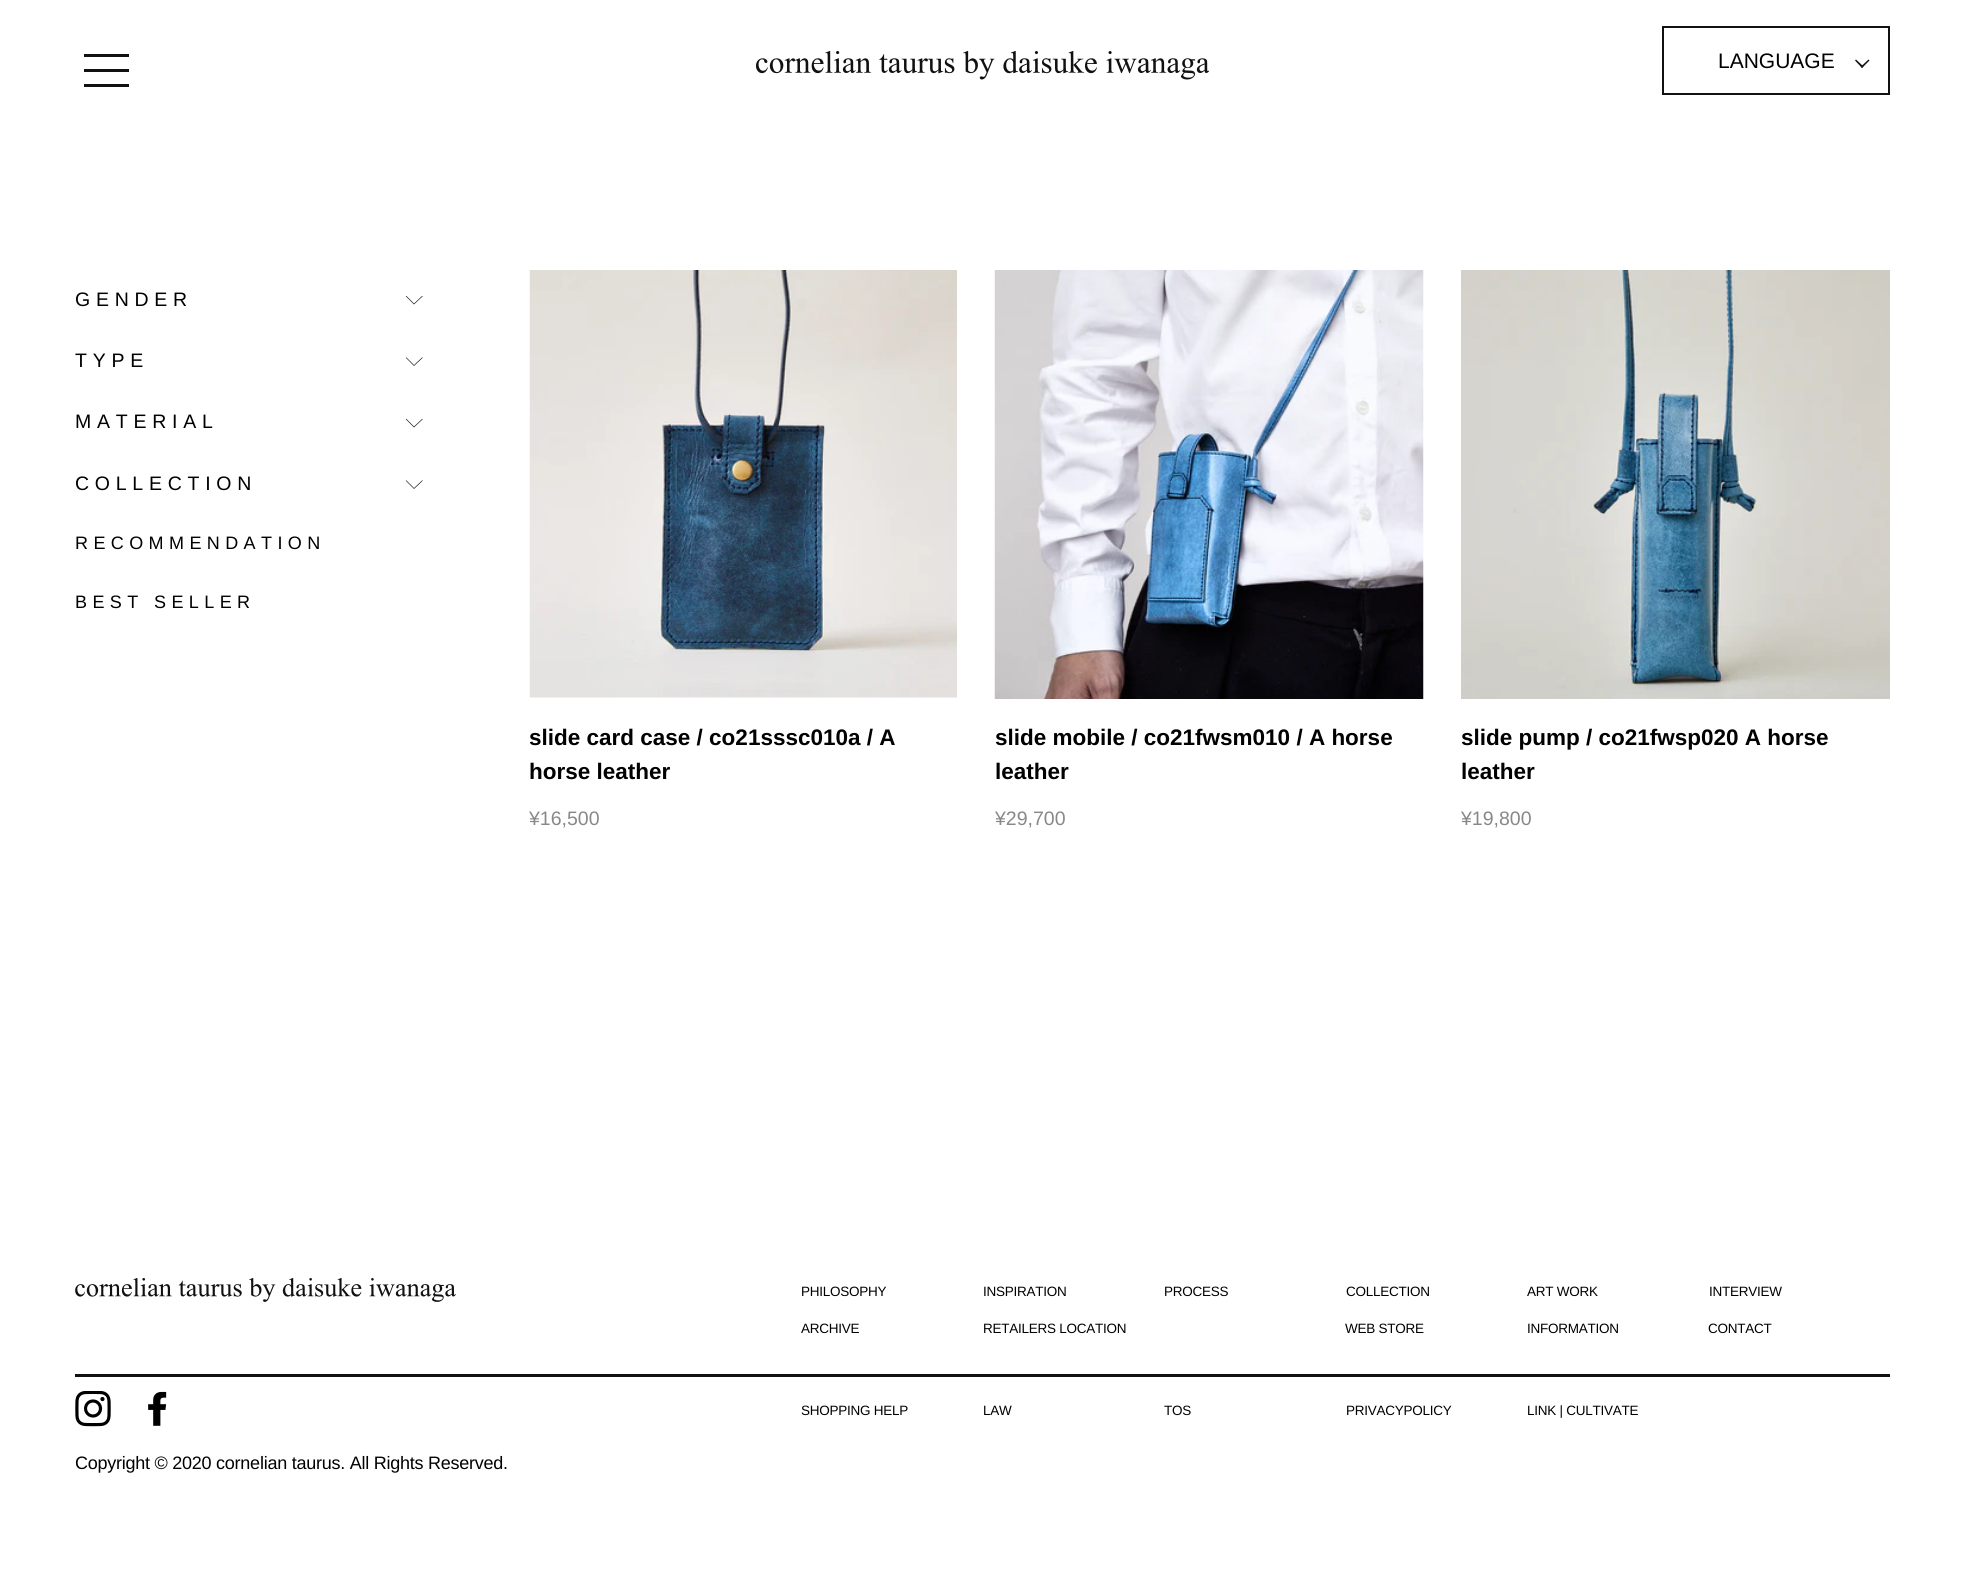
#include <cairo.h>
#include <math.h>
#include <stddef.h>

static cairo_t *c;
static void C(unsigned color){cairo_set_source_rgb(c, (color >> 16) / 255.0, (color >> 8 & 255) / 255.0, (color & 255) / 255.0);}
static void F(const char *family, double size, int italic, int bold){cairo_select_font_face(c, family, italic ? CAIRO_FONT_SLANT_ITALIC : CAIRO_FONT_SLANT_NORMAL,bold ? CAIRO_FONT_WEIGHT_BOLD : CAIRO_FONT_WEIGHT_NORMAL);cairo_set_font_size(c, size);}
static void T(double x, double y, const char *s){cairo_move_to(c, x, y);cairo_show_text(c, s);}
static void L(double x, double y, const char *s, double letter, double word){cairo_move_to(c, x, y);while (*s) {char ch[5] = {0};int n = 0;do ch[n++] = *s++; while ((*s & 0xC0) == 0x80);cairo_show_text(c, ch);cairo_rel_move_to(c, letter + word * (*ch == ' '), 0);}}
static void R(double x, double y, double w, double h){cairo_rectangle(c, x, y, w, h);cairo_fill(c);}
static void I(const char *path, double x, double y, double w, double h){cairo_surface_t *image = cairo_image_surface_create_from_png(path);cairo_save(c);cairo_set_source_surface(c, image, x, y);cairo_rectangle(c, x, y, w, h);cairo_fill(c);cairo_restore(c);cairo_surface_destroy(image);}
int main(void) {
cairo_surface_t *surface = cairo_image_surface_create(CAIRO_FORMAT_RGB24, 1964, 1581);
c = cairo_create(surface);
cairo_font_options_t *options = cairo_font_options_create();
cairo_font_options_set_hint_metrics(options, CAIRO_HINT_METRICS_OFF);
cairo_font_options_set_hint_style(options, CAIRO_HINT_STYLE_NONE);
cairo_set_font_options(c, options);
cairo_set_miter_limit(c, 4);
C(0xffffff);
cairo_paint(c);
C(0x111111);
R(84,54,45,3);
R(84,69,45,3);
R(84,84,45,3);
I("1.png",756,51,453,29);
cairo_rectangle(c,1663,27,226,67);
cairo_stroke(c);
F("Liberation Sans",21,0,0);
C(0x000000);
T(1718,68,"LANGUAGE");
C(0x111111);
cairo_new_path(c);
cairo_move_to(c,1868.5,59.5);
cairo_line_to(c,1869.5,60.5);
cairo_line_to(c,1862,68);
cairo_line_to(c,1861,66.5);
cairo_close_path(c);
cairo_fill(c);
cairo_new_path(c);
cairo_move_to(c,1856,59.5);
cairo_line_to(c,1863.5,66.5);
cairo_line_to(c,1862,68);
cairo_line_to(c,1855,60.5);
cairo_close_path(c);
cairo_fill(c);
F("Liberation Sans",19.5,0,0);
C(0x000000);
L(75,306,"GENDER",5.75,0);
cairo_new_path(c);
cairo_move_to(c,406,296);
cairo_line_to(c,414,304);
cairo_line_to(c,422.5,296);
cairo_set_line_width(c,.6);
cairo_stroke(c);
L(75,367,"TYPE",5.75,0);
cairo_new_path(c);
cairo_move_to(c,406,357.5);
cairo_line_to(c,414,365.5);
cairo_line_to(c,422.5,357.5);
cairo_stroke(c);
L(75,428,"MATERIAL",5.75,0);
cairo_new_path(c);
cairo_move_to(c,406,419);
cairo_line_to(c,414,427);
cairo_line_to(c,422.5,419);
cairo_stroke(c);
L(75,490,"COLLECTION",5.75,0);
cairo_new_path(c);
cairo_move_to(c,406,480.5);
cairo_line_to(c,414,488.5);
cairo_line_to(c,422.5,480.5);
cairo_stroke(c);
F("Liberation Sans",18,0,0);
L(75,549,"RECOMMENDATION",5.4,0);
L(75,608,"BEST SELLER",5.4,0);
I("2.png",529,270,428,428);
F("Liberation Sans",22.5,0,1);
T(529,745,"slide card case / co21sssc010a / A");
T(529,779,"horse leather");
F("Liberation Sans",19.5,0,0);
C(0x888888);
T(529,825,"¥16,500");
I("3.png",994,270,430,429);
F("Liberation Sans",22.5,0,1);
C(0x000000);
T(995,745,"slide mobile / co21fwsm010 / A horse");
T(995,779,"leather");
F("Liberation Sans",19.5,0,0);
C(0x888888);
T(995,825,"¥29,700");
I("4.png",1461,270,429,429);
F("Liberation Sans",22.5,0,1);
C(0x000000);
T(1461,745,"slide pump / co21fwsp020 A horse");
T(1461,779,"leather");
F("Liberation Sans",19.5,0,0);
C(0x888888);
T(1461,825,"¥19,800");
F("Liberation Sans",13.5,0,0);
C(0x000000);
L(801,1296,"PHILOSOPHY",-.25,0);
L(983,1296,"INSPIRATION",-.25,0);
L(1164,1296,"PROCESS",-.25,0);
L(1346,1296,"COLLECTION",-.25,0);
L(1527,1296,"ART WORK",-.25,0);
L(1709,1296,"INTERVIEW",-.25,0);
L(801,1333,"ARCHIVE",-.25,0);
L(983,1333,"RETAILERS LOCATION",-.25,0);
L(1345,1333,"WEB STORE",-.25,0);
L(1527,1333,"INFORMATION",-.25,0);
L(1708,1333,"CONTACT",-.25,0);
L(801,1415,"SHOPPING HELP",-.25,0);
L(983,1415,"LAW",-.25,0);
L(1164,1415,"TOS",-.25,0);
L(1346,1415,"PRIVACYPOLICY",-.25,0);
L(1527,1415,"LINK | CULTIVATE",-.25,0);
C(0x111111);
R(75,1374,1815,3);
I("5.png",75,1278,381,24);
I("6.png",75,1391,36,36);
I("7.png",148,1391,19,35);
F("Liberation Sans",18,0,0);
C(0x000000);
L(75,1469,"Copyright © 2020 cornelian taurus. All Rights Reserved.",-.25,0);
cairo_surface_write_to_png(surface, "o.png");
cairo_font_options_destroy(options);
cairo_destroy(c);
cairo_surface_destroy(surface);
return 0;
}
